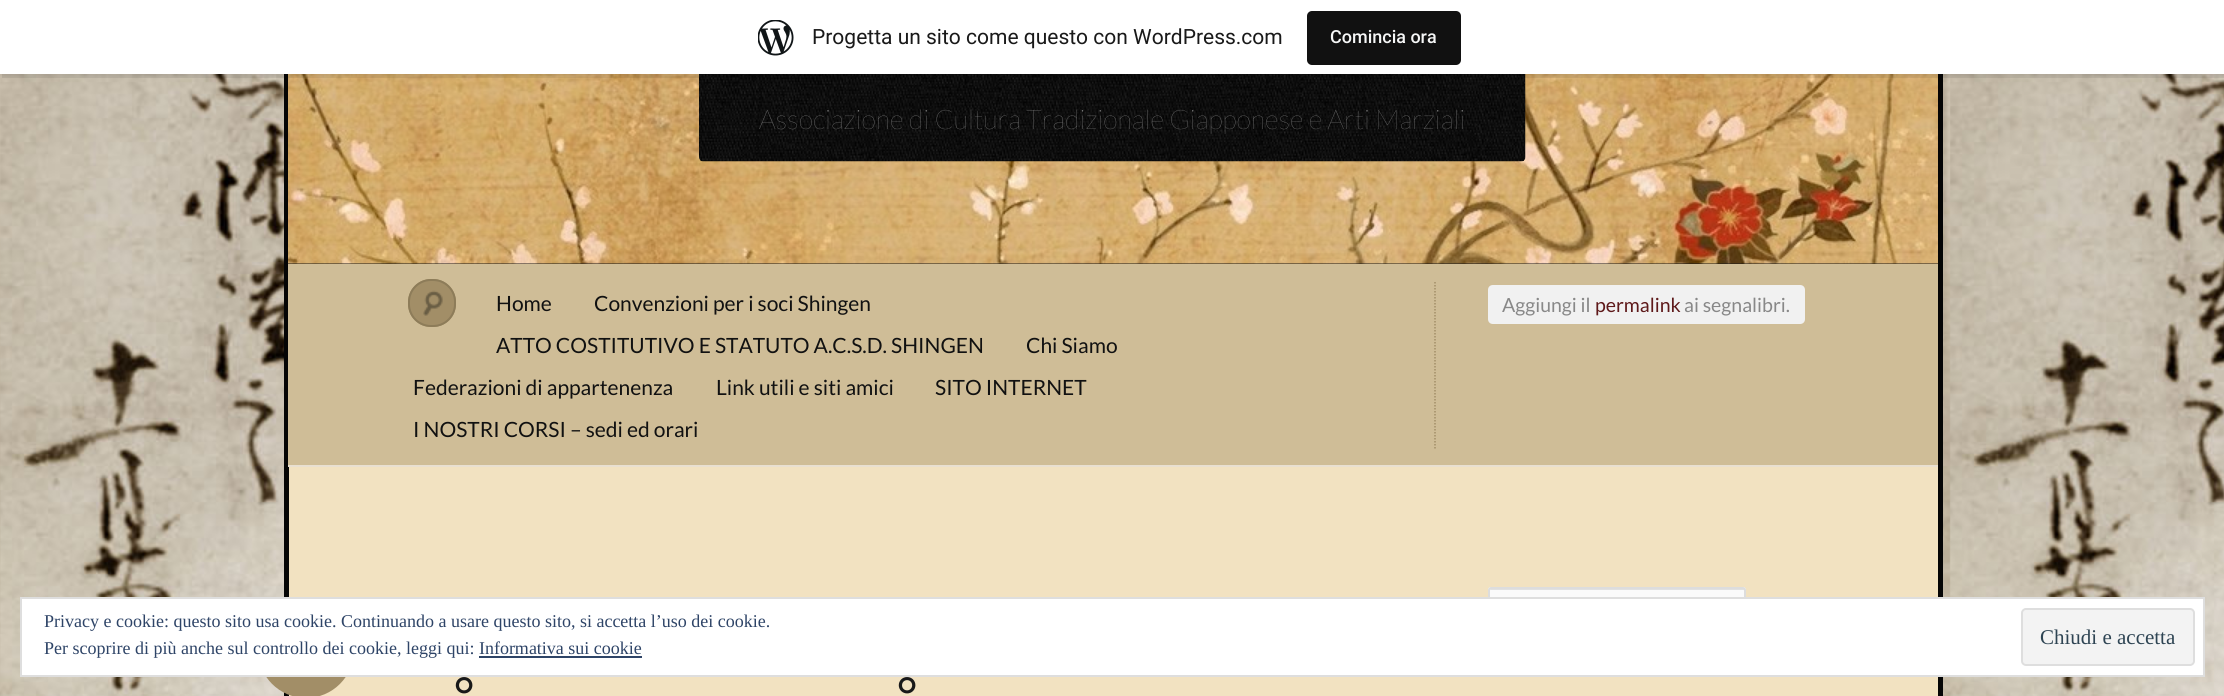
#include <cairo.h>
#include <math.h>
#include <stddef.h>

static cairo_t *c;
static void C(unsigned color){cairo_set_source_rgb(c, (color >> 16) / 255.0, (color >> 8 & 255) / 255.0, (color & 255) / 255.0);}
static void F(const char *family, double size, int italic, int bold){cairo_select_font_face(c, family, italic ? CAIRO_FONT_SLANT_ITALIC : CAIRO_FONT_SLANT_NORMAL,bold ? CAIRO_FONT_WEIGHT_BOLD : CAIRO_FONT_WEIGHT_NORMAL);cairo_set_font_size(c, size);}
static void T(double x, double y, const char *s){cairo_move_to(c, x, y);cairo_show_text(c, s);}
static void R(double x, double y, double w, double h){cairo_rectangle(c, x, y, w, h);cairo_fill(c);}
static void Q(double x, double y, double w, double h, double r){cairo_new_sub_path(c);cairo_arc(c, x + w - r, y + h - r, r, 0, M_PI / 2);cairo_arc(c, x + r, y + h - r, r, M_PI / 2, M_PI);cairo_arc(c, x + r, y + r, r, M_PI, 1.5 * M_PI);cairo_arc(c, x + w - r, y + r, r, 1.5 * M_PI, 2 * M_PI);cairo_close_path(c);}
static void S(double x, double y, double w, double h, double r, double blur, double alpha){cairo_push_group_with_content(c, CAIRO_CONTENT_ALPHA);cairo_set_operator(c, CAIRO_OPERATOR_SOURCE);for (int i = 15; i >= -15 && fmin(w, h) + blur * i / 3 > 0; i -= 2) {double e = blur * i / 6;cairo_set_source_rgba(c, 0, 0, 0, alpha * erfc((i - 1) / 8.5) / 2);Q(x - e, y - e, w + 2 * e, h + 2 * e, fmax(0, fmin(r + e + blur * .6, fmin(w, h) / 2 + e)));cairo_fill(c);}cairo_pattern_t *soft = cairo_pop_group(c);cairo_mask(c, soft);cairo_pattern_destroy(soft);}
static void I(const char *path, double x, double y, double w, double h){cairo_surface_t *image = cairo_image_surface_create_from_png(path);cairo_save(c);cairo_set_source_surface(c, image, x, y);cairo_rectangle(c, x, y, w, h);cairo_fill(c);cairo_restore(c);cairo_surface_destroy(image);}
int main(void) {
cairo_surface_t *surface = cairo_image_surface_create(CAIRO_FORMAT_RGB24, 2224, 696);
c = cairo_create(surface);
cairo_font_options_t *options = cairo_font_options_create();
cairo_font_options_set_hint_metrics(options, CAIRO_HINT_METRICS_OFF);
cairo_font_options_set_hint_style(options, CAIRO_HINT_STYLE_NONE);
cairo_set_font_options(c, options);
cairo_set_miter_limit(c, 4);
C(0xffffff);
cairo_paint(c);
I("1.png",0,74,2224,622);
C(0xf2e2c1);
R(289,467,1649,229);
cairo_rectangle(c,286.5,-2.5,1654,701);
C(0x050505);
cairo_set_line_width(c,5);
cairo_stroke(c);
C(0x181818);
R(288,263,1650,1);
I("3.png",288,74,1650,190);
I("4.png",699,74,827,88);
C(0x000000);
S(0,2,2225,73,0,1.5,.05);
cairo_set_source_rgba(c,0,0,0,0.08);
cairo_new_path(c);
cairo_move_to(c,2,74);
cairo_line_to(c,2,78);
cairo_line_to(c,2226,78);
cairo_line_to(c,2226,5);
cairo_line_to(c,2224,5);
cairo_line_to(c,2224,74);
cairo_close_path(c);
cairo_fill(c);
C(0xffffff);
R(0,0,2224,74);
I("2.png",758,20,36,36);
F("Roboto",21,0,0);
C(0x191919);
T(812,44,"Progetta un sito come questo con WordPress.com");
C(0x111111);
Q(1307,11,154,54,5);
cairo_fill(c);
F("Roboto Medium",18,0,0);
C(0xf6f7f7);
T(1330,43,"Comincia ora");
F("Lato Thin",27,0,0);
C(0x8f8f8f);
T(759,129,"Associazione di Cultura Tradizionale Giapponese e Arti Marziali");
C(0xcfbd97);
R(288,264,1650,201);
C(0xe9e0d1);
R(288,465,1650,2);
C(0xa28e67);
Q(408,279,48,48,23);
cairo_fill(c);
I("5.png",423,290,20,26);
Q(409,280,46,46,22);
C(0x8d7c59);
cairo_set_line_width(c,2);
cairo_stroke(c);
cairo_new_path(c);
cairo_move_to(c,1435,282);
cairo_line_to(c,1435,450);
C(0xa28e67);
cairo_set_line_width(c,1.5);
cairo_set_dash(c,(double[]){1.5,1.5},2,0);
cairo_stroke(c);
F("Lato",21,0,0);
C(0x111111);
T(496,311,"Home");
T(594,311,"Convenzioni per i soci Shingen");
T(496,353,"ATTO COSTITUTIVO E STATUTO A.C.S.D. SHINGEN");
T(1026,353,"Chi Siamo");
T(413,395,"Federazioni di appartenenza");
T(716,395,"Link utili e siti amici");
T(935,395,"SITO INTERNET");
T(413,437,"I NOSTRI CORSI – sedi ed orari");
C(0xf1f1f1);
cairo_new_path(c);
cairo_move_to(c,1493,285);
cairo_line_to(c,1595,285);
cairo_line_to(c,1595,324);
cairo_line_to(c,1493,324);
cairo_curve_to(c,1490,324,1488,322,1488,319);
cairo_line_to(c,1488,290);
cairo_curve_to(c,1488,287,1490,285,1493,285);
cairo_close_path(c);
cairo_fill(c);
F("Lato",19.5,0,0);
C(0x888888);
T(1502,312,"Aggiungi il");
C(0xf1f1f1);
R(1595,285,85,39);
cairo_new_path(c);
cairo_move_to(c,1680,285);
cairo_line_to(c,1800,285);
cairo_curve_to(c,1803,285,1805,287,1805,290);
cairo_line_to(c,1805,319);
cairo_curve_to(c,1805,322,1803,324,1800,324);
cairo_line_to(c,1680,324);
cairo_close_path(c);
cairo_fill(c);
C(0x5e191a);
T(1595,312,"permalink");
C(0x888888);
T(1684,312,"ai segnalibri.");
C(0xa28e67);
cairo_new_path(c);
cairo_arc(c,306,650,48,0,2 * M_PI);
cairo_fill(c);
F("Lato",51,0,0);
C(0x191919);
T(454,714,"°");
T(897,714,"°");
C(0xfafafa);
Q(1488,587,258,48,3);
cairo_fill(c);
C(0xe1e1e1);
cairo_new_path(c);
cairo_move_to(c,1491,590);
cairo_line_to(c,1743,590);
cairo_curve_to(c,1744,590,1744,590,1744,591);
cairo_line_to(c,1744,633);
cairo_line_to(c,1745,632);
cairo_line_to(c,1745,590);
cairo_curve_to(c,1745,589,1744,588,1744,588);
cairo_line_to(c,1492,588);
cairo_curve_to(c,1490,588,1490,590,1490,591);
cairo_curve_to(c,1490,590,1490,590,1491,590);
cairo_close_path(c);
cairo_fill(c);
Q(1489,588,256,46,2);
C(0xdddddd);
cairo_set_line_width(c,2);
cairo_set_dash(c,NULL,0,0);
cairo_stroke(c);
C(0xffffff);
cairo_rectangle(c,21,598,2183,78);
cairo_fill_preserve(c);
C(0xdedede);
cairo_stroke(c);
F("Liberation Serif",18,0,0);
C(0x2e4467);
T(44,627,"Privacy e cookie: questo sito usa cookie. Continuando a usare questo sito, si accetta l’uso dei cookie.");
C(0xf3f3f3);
Q(2022,609,172,56,4);
cairo_fill_preserve(c);
C(0xdedede);
cairo_stroke(c);
F("Liberation Serif",21,0,0);
C(0x2e4453);
T(2040,644,"Chiudi e accetta");
F("Liberation Serif",18,0,0);
C(0x2e4467);
T(44,654,"Per scoprire di più anche sul controllo dei cookie, leggi qui: Informativa sui cookie");
R(479,656,163,2);
cairo_surface_write_to_png(surface, "o.png");
cairo_font_options_destroy(options);
cairo_destroy(c);
cairo_surface_destroy(surface);
return 0;
}
